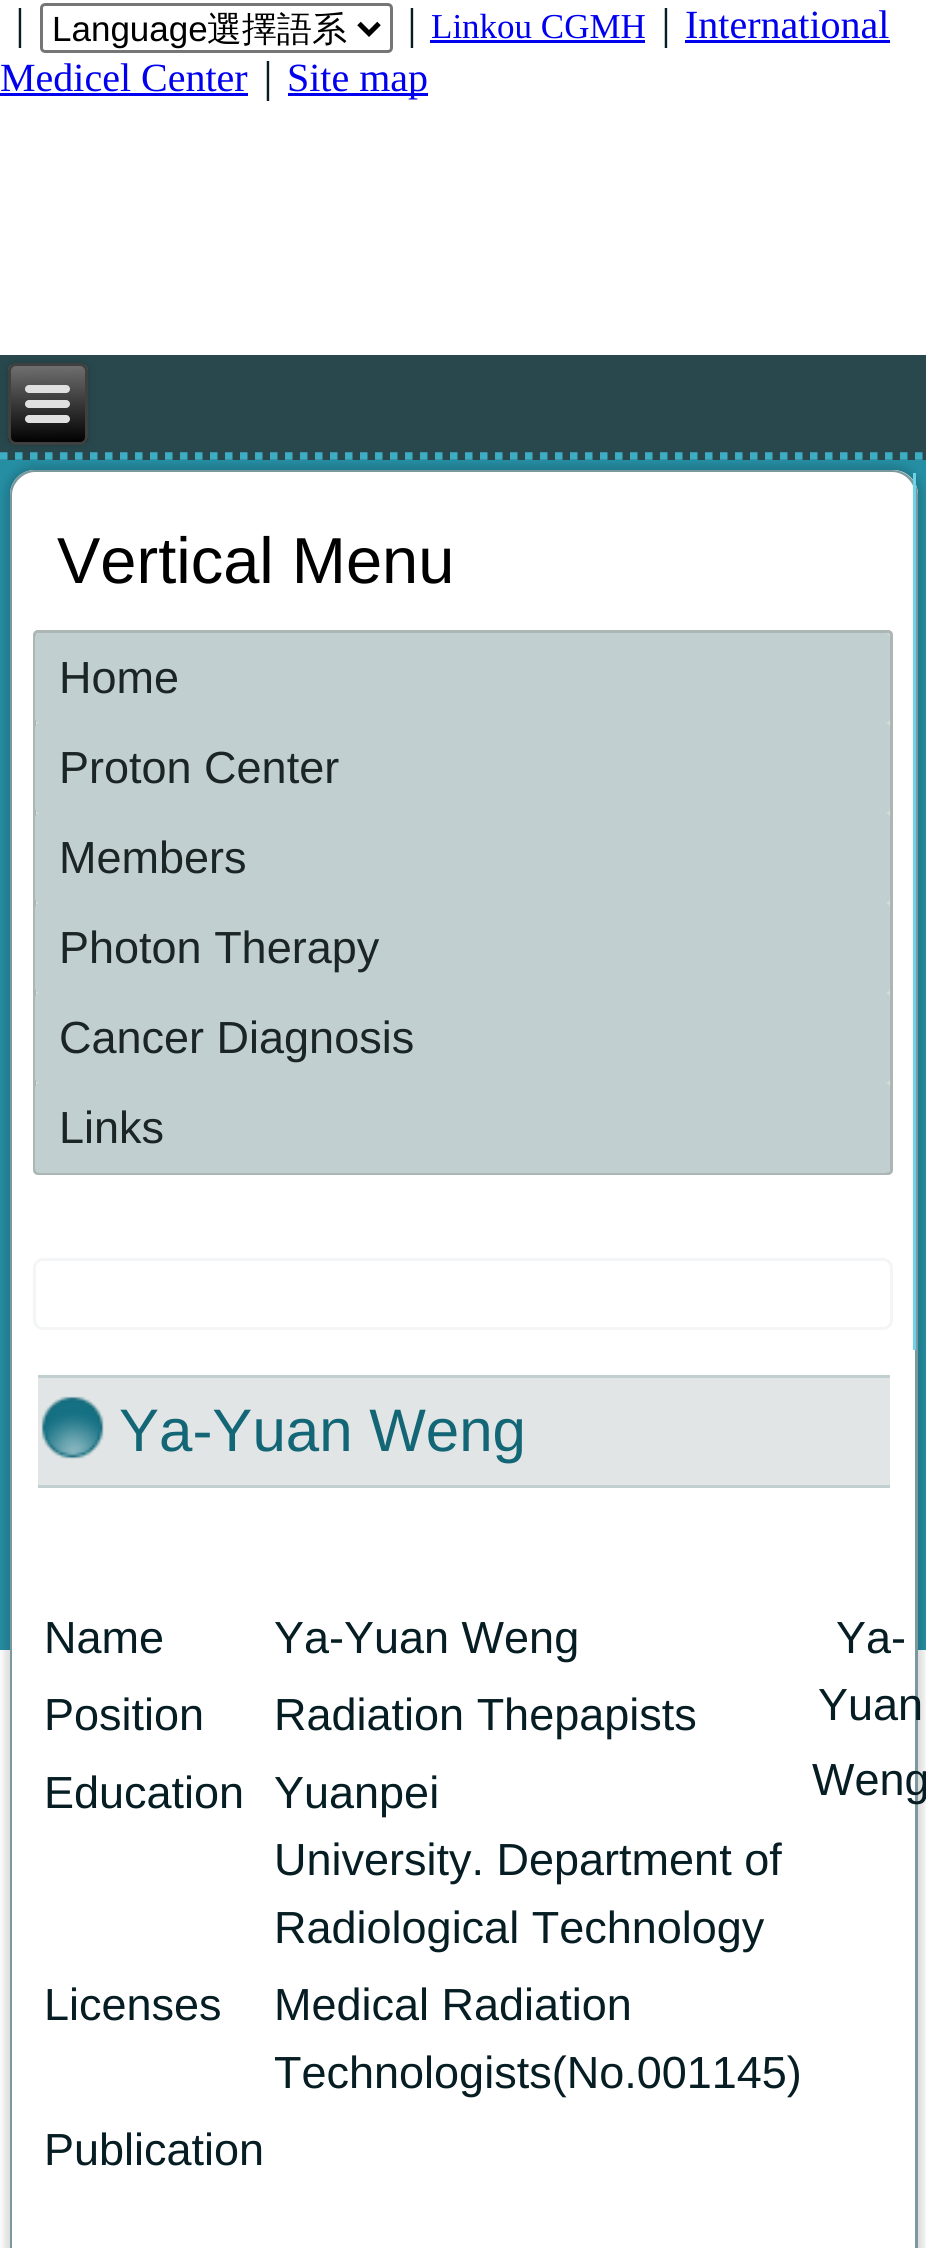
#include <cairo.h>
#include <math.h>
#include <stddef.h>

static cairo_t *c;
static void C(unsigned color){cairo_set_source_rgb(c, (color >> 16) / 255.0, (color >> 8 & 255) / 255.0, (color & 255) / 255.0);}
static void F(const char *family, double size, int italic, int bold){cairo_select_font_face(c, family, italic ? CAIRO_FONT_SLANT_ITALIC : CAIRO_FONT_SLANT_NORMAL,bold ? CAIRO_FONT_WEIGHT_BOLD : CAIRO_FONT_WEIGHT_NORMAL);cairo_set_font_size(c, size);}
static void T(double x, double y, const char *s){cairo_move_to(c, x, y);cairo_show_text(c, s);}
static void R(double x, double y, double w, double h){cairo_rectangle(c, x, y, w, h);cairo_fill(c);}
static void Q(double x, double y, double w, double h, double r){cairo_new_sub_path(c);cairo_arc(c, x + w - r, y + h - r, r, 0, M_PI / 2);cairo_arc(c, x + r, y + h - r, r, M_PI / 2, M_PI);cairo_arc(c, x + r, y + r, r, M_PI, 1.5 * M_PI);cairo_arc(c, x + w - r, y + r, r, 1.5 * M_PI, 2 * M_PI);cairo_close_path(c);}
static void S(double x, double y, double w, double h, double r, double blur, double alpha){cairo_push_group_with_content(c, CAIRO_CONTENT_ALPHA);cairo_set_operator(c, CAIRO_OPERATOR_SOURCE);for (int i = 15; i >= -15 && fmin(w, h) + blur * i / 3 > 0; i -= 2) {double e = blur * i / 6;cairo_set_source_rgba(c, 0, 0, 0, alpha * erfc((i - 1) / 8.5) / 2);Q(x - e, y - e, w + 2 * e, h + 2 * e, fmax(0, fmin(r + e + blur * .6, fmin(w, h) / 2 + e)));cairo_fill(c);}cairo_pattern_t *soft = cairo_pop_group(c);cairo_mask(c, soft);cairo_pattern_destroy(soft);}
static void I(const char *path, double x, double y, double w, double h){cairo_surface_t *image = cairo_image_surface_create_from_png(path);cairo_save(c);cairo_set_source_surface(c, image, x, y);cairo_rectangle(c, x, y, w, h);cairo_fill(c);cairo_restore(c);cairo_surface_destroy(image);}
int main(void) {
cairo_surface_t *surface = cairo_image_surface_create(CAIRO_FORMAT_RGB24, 926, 2248);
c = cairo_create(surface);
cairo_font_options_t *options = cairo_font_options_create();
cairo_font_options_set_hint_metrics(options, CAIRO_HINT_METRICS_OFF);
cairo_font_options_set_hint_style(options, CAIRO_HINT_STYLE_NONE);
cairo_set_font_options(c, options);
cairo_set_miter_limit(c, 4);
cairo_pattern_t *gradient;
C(0xffffff);
cairo_paint(c);
F("WenQuanYi Zen Hei Medium",40,0,0);
C(0x061e23);
T(0,38,"｜");
Q(41.5,4.5,350,47,3.5);
C(0x767676);
cairo_set_line_width(c,3);
cairo_stroke(c);
cairo_new_path(c);
cairo_move_to(c,359,23.5);
cairo_line_to(c,369,33.5);
cairo_line_to(c,379,23.5);
C(0x000000);
cairo_set_line_width(c,5);
cairo_stroke(c);
F("Liberation Sans",35,0,0);
T(52,41,"Language");
F("WenQuanYi Zen Hei Medium",35,0,0);
T(207,41,"選擇語系");
F("WenQuanYi Zen Hei Medium",40,0,0);
C(0x061e23);
T(392,38,"｜");
F("Liberation Serif",35,0,0);
C(0x0000ee);
T(431,38,"Linkou CGMH");
R(430,40,215,3);
F("WenQuanYi Zen Hei Medium",40,0,0);
C(0x061e23);
T(646,38,"｜");
F("Liberation Serif",40,0,0);
C(0x0000ee);
T(685,38,"International");
R(685,40,205,3);
T(0,91,"Medicel Center");
R(0,93,248,3);
F("WenQuanYi Zen Hei Medium",40,0,0);
C(0x061e23);
T(248,91,"｜");
C(0x0000ee);
R(288,93,140,3);
F("Liberation Serif",40,0,0);
T(287,91,"Site map");
C(0x258ea3);
R(0,460,926,1190);
C(0x000000);
S(5,465,918,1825,30,4,.15);
C(0x28484d);
R(0,355,926,105);
cairo_new_path(c);
cairo_move_to(c,0,456);
cairo_line_to(c,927.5,456);
C(0x3dadc3);
cairo_set_line_width(c,7.5);
cairo_set_dash(c,(double[]){7.5,7.5},2,0);
cairo_stroke(c);
C(0x000000);
S(8,363,80,82,8,4,.2);
cairo_save(c);
Q(8,363,80,82,8);
cairo_clip(c);
gradient = cairo_pattern_create_linear(47,365,48,443);
cairo_pattern_add_color_stop_rgba(gradient,0,0.439,0.439,0.439,1);
cairo_pattern_add_color_stop_rgba(gradient,1,0,0,0,1);
cairo_set_source(c,gradient);
cairo_pattern_destroy(gradient);
R(8,365,80,78);
cairo_restore(c);
Q(9.5,364.5,77,79,6.5);
C(0x404040);
cairo_set_line_width(c,3);
cairo_set_dash(c,NULL,0,0);
cairo_stroke(c);
C(0xe0e0e0);
Q(25,385,45,8,4);
cairo_fill(c);
Q(25,400,45,8,4);
cairo_fill(c);
Q(25,415,45,8,4);
cairo_fill(c);
C(0xffffff);
cairo_new_path(c);
cairo_move_to(c,35,470);
cairo_line_to(c,893,470);
cairo_curve_to(c,907,470,918,481,918,495);
cairo_line_to(c,918,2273);
cairo_line_to(c,10,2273);
cairo_line_to(c,10,495);
cairo_curve_to(c,10,481,21,470,35,470);
cairo_close_path(c);
cairo_fill(c);
C(0x7b999d);
cairo_set_fill_rule(c,CAIRO_FILL_RULE_EVEN_ODD);
cairo_new_path(c);
cairo_move_to(c,35,470);
cairo_line_to(c,892,470);
cairo_curve_to(c,906,470,918,481,918,495);
cairo_line_to(c,918,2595);
cairo_line_to(c,10,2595);
cairo_line_to(c,10,495);
cairo_curve_to(c,10,481,21,470,35,470);
cairo_close_path(c);
cairo_move_to(c,35,472);
cairo_line_to(c,892,472);
cairo_curve_to(c,905,472,915,483,915,495);
cairo_line_to(c,915,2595);
cairo_line_to(c,12,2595);
cairo_line_to(c,12,495);
cairo_curve_to(c,12,483,23,472,35,472);
cairo_close_path(c);
cairo_fill(c);
C(0x6ed3e7);
R(913,473,3,877);
F("Liberation Sans",65,0,0);
C(0x000000);
T(57,583,"Vertical Menu");
C(0xd6dbdb);
Q(33,630,860,545,5);
cairo_fill(c);
Q(34.5,631.5,857,542,3.5);
cairo_set_source_rgba(c,0.627,0.675,0.671,0.8);
cairo_stroke(c);
C(0xc1cfd1);
Q(35,633,855,90,5);
cairo_fill(c);
F("Liberation Sans",45,0,0);
C(0x1c2526);
T(59,693,"Home");
C(0xc1cfd1);
Q(35,723,855,90,5);
cairo_fill(c);
C(0x1c2526);
T(59,783,"Proton Center");
C(0xc1cfd1);
Q(35,813,855,90,5);
cairo_fill(c);
C(0x1c2526);
T(59,873,"Members");
C(0xc1cfd1);
Q(35,903,855,90,5);
cairo_fill(c);
C(0x1c2526);
T(59,963,"Photon Therapy");
C(0xc1cfd1);
Q(35,993,855,90,5);
cairo_fill(c);
C(0x1c2526);
T(59,1053,"Cancer Diagnosis");
C(0xc1cfd1);
Q(35,1083,855,90,5);
cairo_fill(c);
C(0x1c2526);
T(59,1143,"Links");
Q(34.5,1259.5,857,69,8.5);
C(0xf3f5f6);
cairo_stroke(c);
C(0xe1e5e5);
R(38,1378,852,107);
C(0xc1cfd1);
R(38,1375,852,3);
R(38,1485,852,3);
I("1.png",41,1396,63,63);
F("Liberation Sans",60,0,0);
C(0x136676);
T(119,1451,"Ya-Yuan Weng");
F("Liberation Sans",45,0,0);
C(0x061e23);
T(44,1653,"Name");
T(274,1653,"Ya-Yuan Weng");
T(836,1653,"Ya-");
T(818,1720,"Yuan");
T(812,1795,"Weng");
T(44,1730,"Position");
T(274,1730,"Radiation Thepapists");
T(44,1808,"Education");
T(274,1808,"Yuanpei");
T(274,1875,"University. Department of");
T(274,1943,"Radiological Technology");
T(44,2020,"Licenses");
T(274,2020,"Medical Radiation");
T(274,2088,"Technologists(No.001145)");
T(44,2165,"Publication");
cairo_surface_write_to_png(surface, "o.png");
cairo_font_options_destroy(options);
cairo_destroy(c);
cairo_surface_destroy(surface);
return 0;
}
